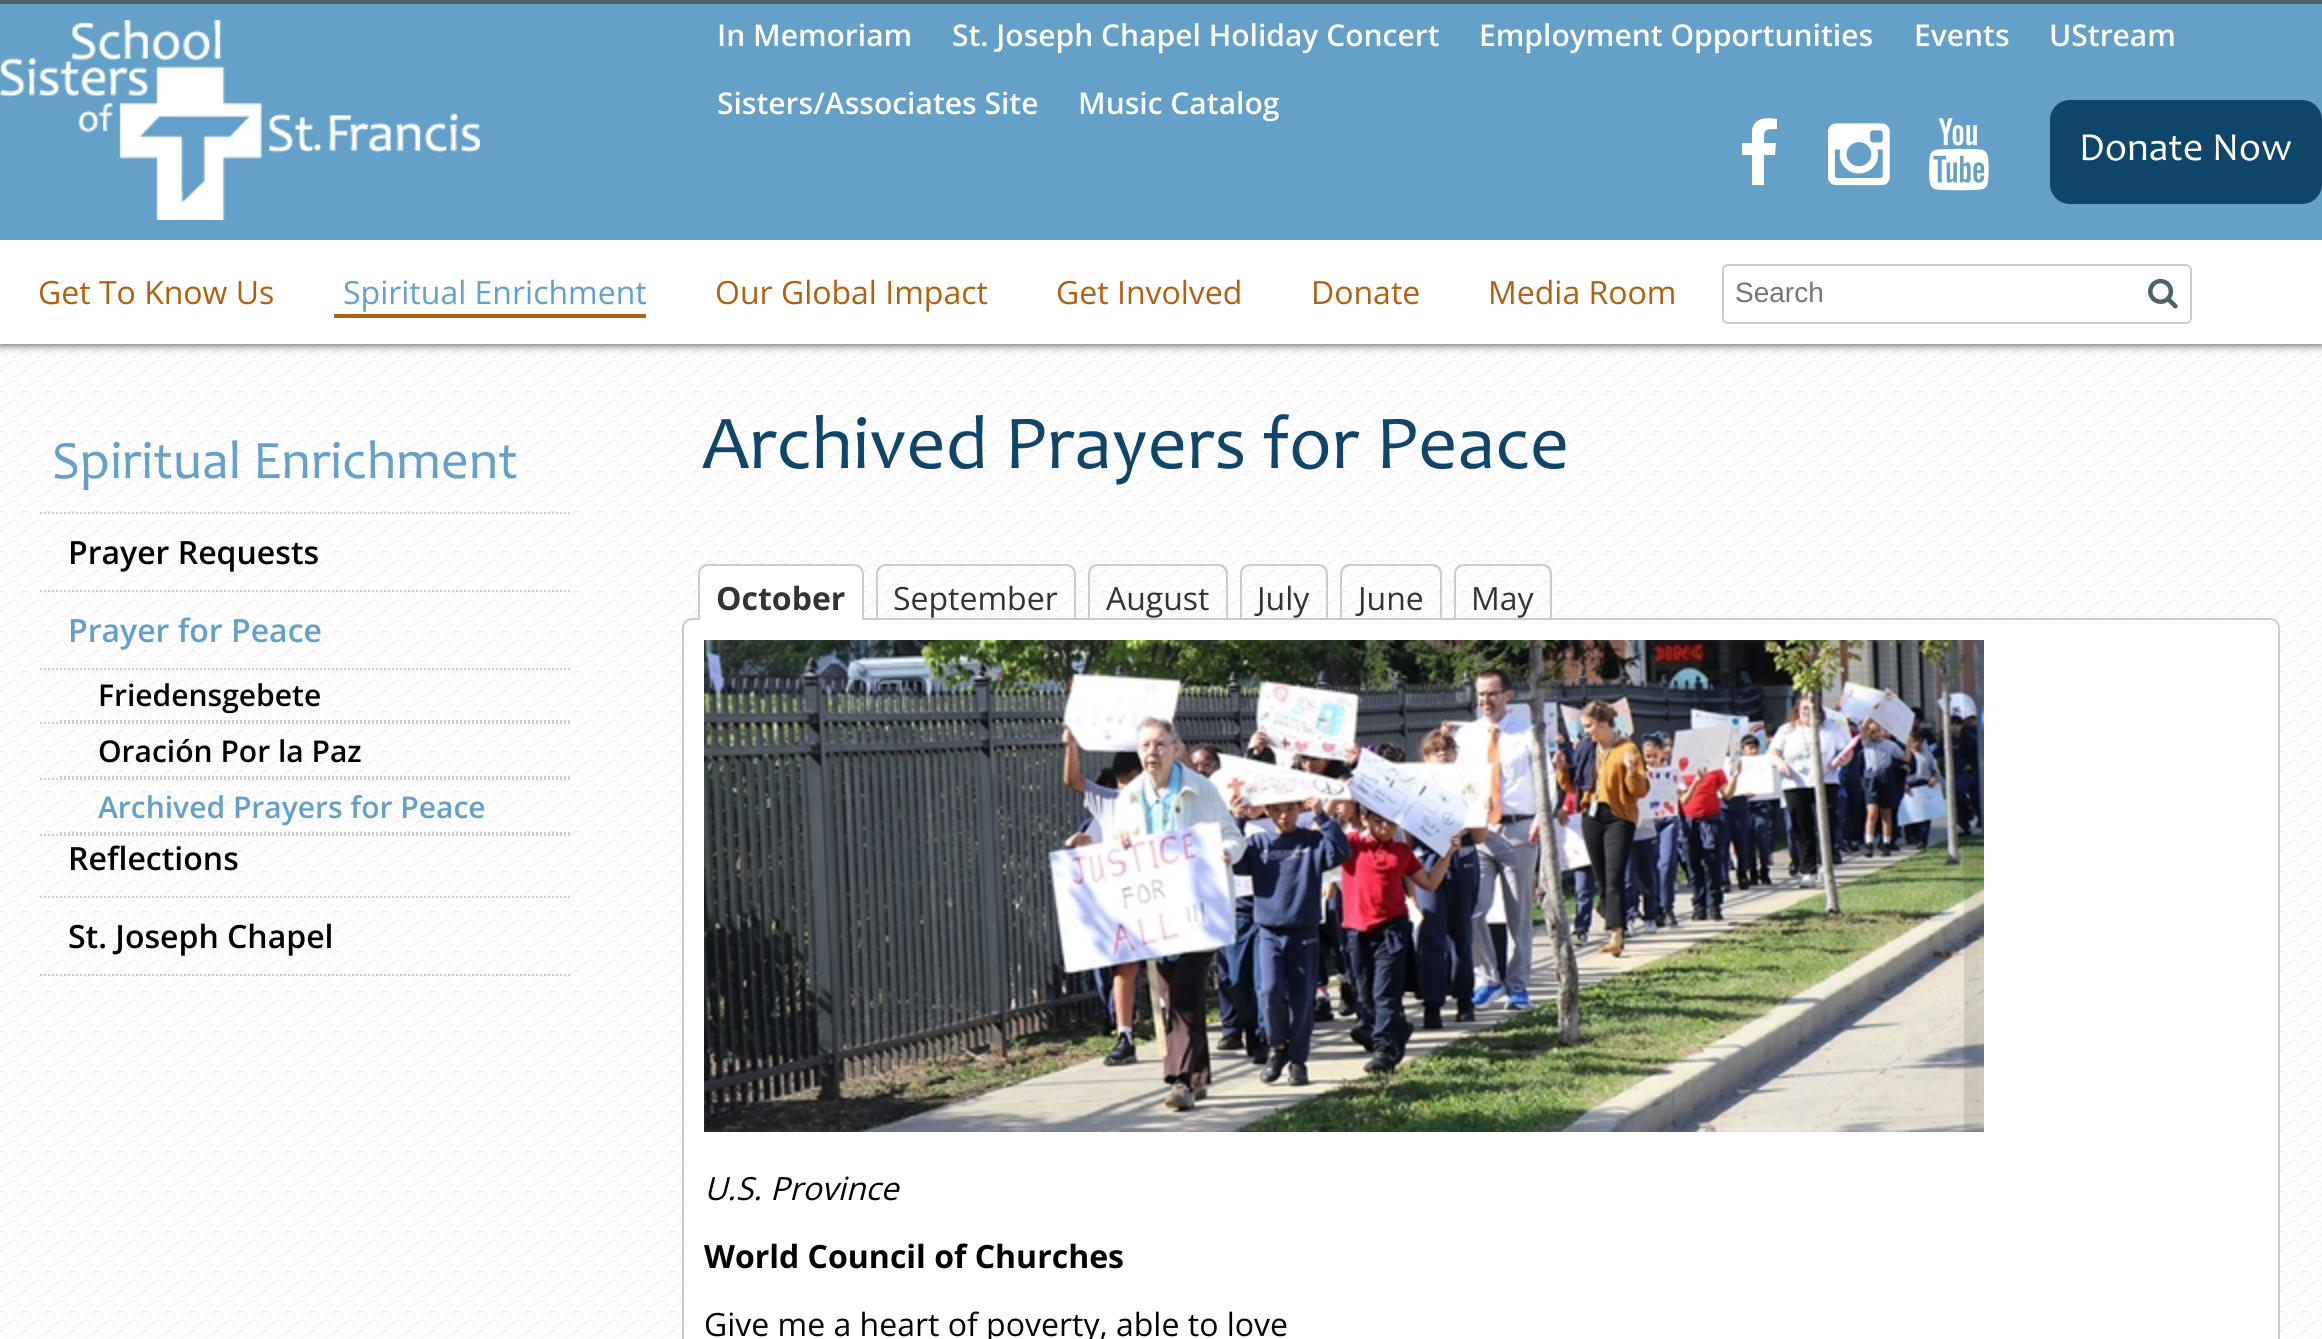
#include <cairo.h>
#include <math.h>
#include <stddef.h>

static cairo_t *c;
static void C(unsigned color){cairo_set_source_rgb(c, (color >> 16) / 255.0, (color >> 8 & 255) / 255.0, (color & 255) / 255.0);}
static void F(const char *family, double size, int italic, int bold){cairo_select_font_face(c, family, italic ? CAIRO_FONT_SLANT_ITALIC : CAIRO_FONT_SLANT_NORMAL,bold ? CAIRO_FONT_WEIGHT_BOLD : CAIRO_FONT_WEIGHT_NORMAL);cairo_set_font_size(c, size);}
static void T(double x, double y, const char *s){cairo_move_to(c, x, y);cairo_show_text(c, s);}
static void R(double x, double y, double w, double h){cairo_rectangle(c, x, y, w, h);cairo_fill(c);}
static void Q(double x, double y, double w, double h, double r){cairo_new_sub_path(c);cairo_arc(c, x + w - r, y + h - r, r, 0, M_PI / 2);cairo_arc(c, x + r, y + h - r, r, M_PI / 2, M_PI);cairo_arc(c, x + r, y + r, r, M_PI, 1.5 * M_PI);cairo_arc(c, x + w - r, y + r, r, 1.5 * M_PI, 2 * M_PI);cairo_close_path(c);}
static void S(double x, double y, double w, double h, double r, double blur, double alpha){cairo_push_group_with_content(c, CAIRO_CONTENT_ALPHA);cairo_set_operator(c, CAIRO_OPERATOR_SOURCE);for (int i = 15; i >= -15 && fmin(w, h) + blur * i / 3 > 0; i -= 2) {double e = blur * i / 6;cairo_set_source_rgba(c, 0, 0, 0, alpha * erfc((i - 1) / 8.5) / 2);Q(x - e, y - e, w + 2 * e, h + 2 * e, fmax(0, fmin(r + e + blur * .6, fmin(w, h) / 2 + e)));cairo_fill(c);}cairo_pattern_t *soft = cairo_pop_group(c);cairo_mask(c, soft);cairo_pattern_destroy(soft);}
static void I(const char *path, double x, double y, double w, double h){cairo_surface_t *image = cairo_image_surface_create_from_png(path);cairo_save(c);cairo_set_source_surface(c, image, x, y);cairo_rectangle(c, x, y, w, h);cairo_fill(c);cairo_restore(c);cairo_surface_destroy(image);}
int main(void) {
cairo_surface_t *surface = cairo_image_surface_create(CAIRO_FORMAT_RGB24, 2322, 1339);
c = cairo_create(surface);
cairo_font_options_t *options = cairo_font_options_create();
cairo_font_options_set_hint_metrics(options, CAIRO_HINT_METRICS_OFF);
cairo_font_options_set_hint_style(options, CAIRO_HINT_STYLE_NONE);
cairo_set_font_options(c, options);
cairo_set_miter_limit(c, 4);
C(0xffffff);
cairo_paint(c);
I("5.png",0,344,2322,995);
C(0x333333);
S(0,0,2322,344,0,5,1);
C(0x64a0c8);
R(0,4,2322,236);
C(0x51626f);
R(0,0,2322,4);
F("Open Sans SemiBold",30,0,0);
C(0xffffff);
T(717,46,"In Memoriam");
T(952,46,"St. Joseph Chapel Holiday Concert");
T(1479,46,"Employment Opportunities");
T(1914,46,"Events");
T(2049,46,"UStream");
T(717,114,"Sisters/Associates Site");
T(1078,114,"Music Catalog");
I("1.png",0,20,480,200);
cairo_new_path(c);
cairo_move_to(c,1777,119);
cairo_line_to(c,1777,129);
cairo_curve_to(c,1763,129,1764,130,1764,143);
cairo_line_to(c,1776,143);
cairo_line_to(c,1775,155);
cairo_line_to(c,1764,155);
cairo_line_to(c,1764,185);
cairo_line_to(c,1752,185);
cairo_line_to(c,1752,155);
cairo_line_to(c,1742,155);
cairo_line_to(c,1742,143);
cairo_line_to(c,1752,143);
cairo_line_to(c,1752,130);
cairo_curve_to(c,1754,118,1766,117,1777,119);
cairo_close_path(c);
cairo_fill(c);
I("2.png",1828,123,62,63);
I("3.png",1929,118,60,73);
C(0x0f4569);
Q(2050,100,272,104,20);
cairo_fill(c);
F("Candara",40,0,0);
C(0xffffff);
T(2079,160,"Donate Now");
R(0,240,2322,104);
F("Open Sans",32,0,0);
C(0xb06110);
T(38,304,"Get To Know Us");
C(0x64a0c8);
T(343,304,"Spiritual Enrichment");
C(0xb06110);
R(334,314,312,4);
T(715,304,"Our Global Impact");
T(1056,304,"Get Involved");
T(1311,304,"Donate");
T(1488,304,"Media Room");
Q(1723,265,468,58,5);
C(0xcccccc);
cairo_stroke(c);
F("Liberation Sans",28,0,0);
C(0x757575);
T(1735,302,"Search");
I("4.png",2148,278,30,31);
cairo_new_path(c);
cairo_move_to(c,40,513);
cairo_line_to(c,570,513);
C(0xcccccc);
cairo_set_dash(c,(double[]){2,2},2,0);
cairo_stroke(c);
F("Candara",54.5,0,0);
C(0x64a0c8);
T(52,478,"Spiritual Enrichment");
cairo_new_path(c);
cairo_move_to(c,40,591);
cairo_line_to(c,570,591);
C(0xcccccc);
cairo_stroke(c);
F("Open Sans SemiBold",32,0,0);
C(0x000000);
T(68,564,"Prayer Requests");
cairo_new_path(c);
cairo_move_to(c,40,669);
cairo_line_to(c,570,669);
C(0xcccccc);
cairo_stroke(c);
C(0x64a0c8);
T(68,642,"Prayer for Peace");
cairo_new_path(c);
cairo_move_to(c,40,723);
cairo_line_to(c,570,723);
C(0xcccccc);
cairo_stroke(c);
cairo_save(c);
cairo_rectangle(c,40,420,530,556);
cairo_clip(c);
cairo_new_path(c);
cairo_move_to(c,60,721);
cairo_line_to(c,590,721);
cairo_stroke(c);
cairo_restore(c);
F("Open Sans SemiBold",30,0,0);
C(0x000000);
T(98,706,"Friedensgebete");
cairo_new_path(c);
cairo_move_to(c,40,779);
cairo_line_to(c,570,779);
C(0xcccccc);
cairo_stroke(c);
cairo_save(c);
cairo_rectangle(c,40,420,530,556);
cairo_clip(c);
cairo_new_path(c);
cairo_move_to(c,60,777);
cairo_line_to(c,590,777);
cairo_stroke(c);
cairo_restore(c);
C(0x000000);
T(98,762,"Oración Por la Paz");
cairo_new_path(c);
cairo_move_to(c,40,835);
cairo_line_to(c,570,835);
C(0xcccccc);
cairo_stroke(c);
cairo_save(c);
cairo_rectangle(c,40,420,530,556);
cairo_clip(c);
cairo_new_path(c);
cairo_move_to(c,60,833);
cairo_line_to(c,590,833);
cairo_stroke(c);
cairo_restore(c);
C(0x64a0c8);
T(98,818,"Archived Prayers for Peace");
cairo_new_path(c);
cairo_move_to(c,40,897);
cairo_line_to(c,570,897);
C(0xcccccc);
cairo_stroke(c);
F("Open Sans SemiBold",32,0,0);
C(0x000000);
T(68,870,"Reflections");
cairo_new_path(c);
cairo_move_to(c,40,975);
cairo_line_to(c,570,975);
C(0xcccccc);
cairo_stroke(c);
C(0x000000);
T(68,948,"St. Joseph Chapel");
F("Candara",76.75,0,0);
C(0x0f4569);
T(702,468,"Archived Prayers for Peace");
C(0xffffff);
Q(683,619,1596,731,9);
cairo_fill_preserve(c);
C(0xcccccc);
cairo_set_dash(c,NULL,0,0);
cairo_stroke(c);
C(0xffffff);
cairo_new_path(c);
cairo_move_to(c,708,564);
cairo_line_to(c,854,564);
cairo_curve_to(c,859.5,564,864,568.5,864,574);
cairo_line_to(c,864,620);
cairo_line_to(c,698,620);
cairo_line_to(c,698,574);
cairo_curve_to(c,698,568.5,702.5,564,708,564);
cairo_close_path(c);
cairo_fill(c);
C(0xcccccc);
cairo_set_fill_rule(c,CAIRO_FILL_RULE_EVEN_ODD);
cairo_new_path(c);
cairo_move_to(c,708,564);
cairo_line_to(c,854,564);
cairo_curve_to(c,860,564,864,568,864,574);
cairo_line_to(c,864,620);
cairo_line_to(c,698,620);
cairo_line_to(c,698,574);
cairo_curve_to(c,698,568,702,564,708,564);
cairo_close_path(c);
cairo_move_to(c,708,566);
cairo_line_to(c,854,566);
cairo_curve_to(c,858,566,862,570,862,574);
cairo_line_to(c,862,620);
cairo_line_to(c,700,620);
cairo_line_to(c,700,574);
cairo_curve_to(c,700,570,704,566,708,566);
cairo_close_path(c);
cairo_fill(c);
F("Open Sans",32,0,1);
C(0x333333);
T(716,610,"October");
C(0xcccccc);
cairo_new_path(c);
cairo_move_to(c,886,564);
cairo_line_to(c,1066,564);
cairo_curve_to(c,1072,564,1076,568,1076,574);
cairo_line_to(c,1076,620);
cairo_line_to(c,876,620);
cairo_line_to(c,876,574);
cairo_curve_to(c,876,568,880,564,886,564);
cairo_close_path(c);
cairo_move_to(c,886,566);
cairo_line_to(c,1066,566);
cairo_curve_to(c,1070,566,1074,570,1074,574);
cairo_line_to(c,1074,620);
cairo_line_to(c,878,620);
cairo_line_to(c,878,574);
cairo_curve_to(c,878,570,882,566,886,566);
cairo_close_path(c);
cairo_fill(c);
F("Open Sans",32,0,0);
C(0x333333);
T(893,610,"September");
C(0xcccccc);
cairo_new_path(c);
cairo_move_to(c,1098,564);
cairo_line_to(c,1218,564);
cairo_curve_to(c,1224,564,1228,568,1228,574);
cairo_line_to(c,1228,620);
cairo_line_to(c,1088,620);
cairo_line_to(c,1088,574);
cairo_curve_to(c,1088,568,1092,564,1098,564);
cairo_close_path(c);
cairo_move_to(c,1098,566);
cairo_line_to(c,1218,566);
cairo_curve_to(c,1222,566,1226,570,1226,574);
cairo_line_to(c,1226,620);
cairo_line_to(c,1090,620);
cairo_line_to(c,1090,574);
cairo_curve_to(c,1090,570,1094,566,1098,566);
cairo_close_path(c);
cairo_fill(c);
C(0x333333);
T(1106,610,"August");
C(0xcccccc);
cairo_new_path(c);
cairo_move_to(c,1250,564);
cairo_line_to(c,1318,564);
cairo_curve_to(c,1324,564,1328,568,1328,574);
cairo_line_to(c,1328,620);
cairo_line_to(c,1240,620);
cairo_line_to(c,1240,574);
cairo_curve_to(c,1240,568,1244,564,1250,564);
cairo_close_path(c);
cairo_move_to(c,1250,566);
cairo_line_to(c,1318,566);
cairo_curve_to(c,1322,566,1326,570,1326,574);
cairo_line_to(c,1326,620);
cairo_line_to(c,1242,620);
cairo_line_to(c,1242,574);
cairo_curve_to(c,1242,570,1246,566,1250,566);
cairo_close_path(c);
cairo_fill(c);
C(0x333333);
T(1257,610,"July");
C(0xcccccc);
cairo_new_path(c);
cairo_move_to(c,1350,564);
cairo_line_to(c,1432,564);
cairo_curve_to(c,1438,564,1442,568,1442,574);
cairo_line_to(c,1442,620);
cairo_line_to(c,1340,620);
cairo_line_to(c,1340,574);
cairo_curve_to(c,1340,568,1344,564,1350,564);
cairo_close_path(c);
cairo_move_to(c,1350,566);
cairo_line_to(c,1432,566);
cairo_curve_to(c,1436,566,1440,570,1440,574);
cairo_line_to(c,1440,620);
cairo_line_to(c,1342,620);
cairo_line_to(c,1342,574);
cairo_curve_to(c,1342,570,1346,566,1350,566);
cairo_close_path(c);
cairo_fill(c);
C(0x333333);
T(1358,610,"June");
C(0xcccccc);
cairo_new_path(c);
cairo_move_to(c,1464,564);
cairo_line_to(c,1542,564);
cairo_curve_to(c,1548,564,1552,568,1552,574);
cairo_line_to(c,1552,620);
cairo_line_to(c,1454,620);
cairo_line_to(c,1454,574);
cairo_curve_to(c,1454,568,1458,564,1464,564);
cairo_close_path(c);
cairo_move_to(c,1464,566);
cairo_line_to(c,1542,566);
cairo_curve_to(c,1546,566,1550,570,1550,574);
cairo_line_to(c,1550,620);
cairo_line_to(c,1456,620);
cairo_line_to(c,1456,574);
cairo_curve_to(c,1456,570,1460,566,1464,566);
cairo_close_path(c);
cairo_fill(c);
C(0x333333);
T(1471,610,"May");
I("6.png",704,640,1280,492);
F("Open Sans",32,1,0);
C(0x000000);
T(704,1200,"U.S. Province");
F("Open Sans",32,0,1);
T(704,1268,"World Council of Churches");
F("Open Sans",32,0,0);
T(704,1336,"Give me a heart of poverty, able to love");
cairo_surface_write_to_png(surface, "o.png");
cairo_font_options_destroy(options);
cairo_destroy(c);
cairo_surface_destroy(surface);
return 0;
}
